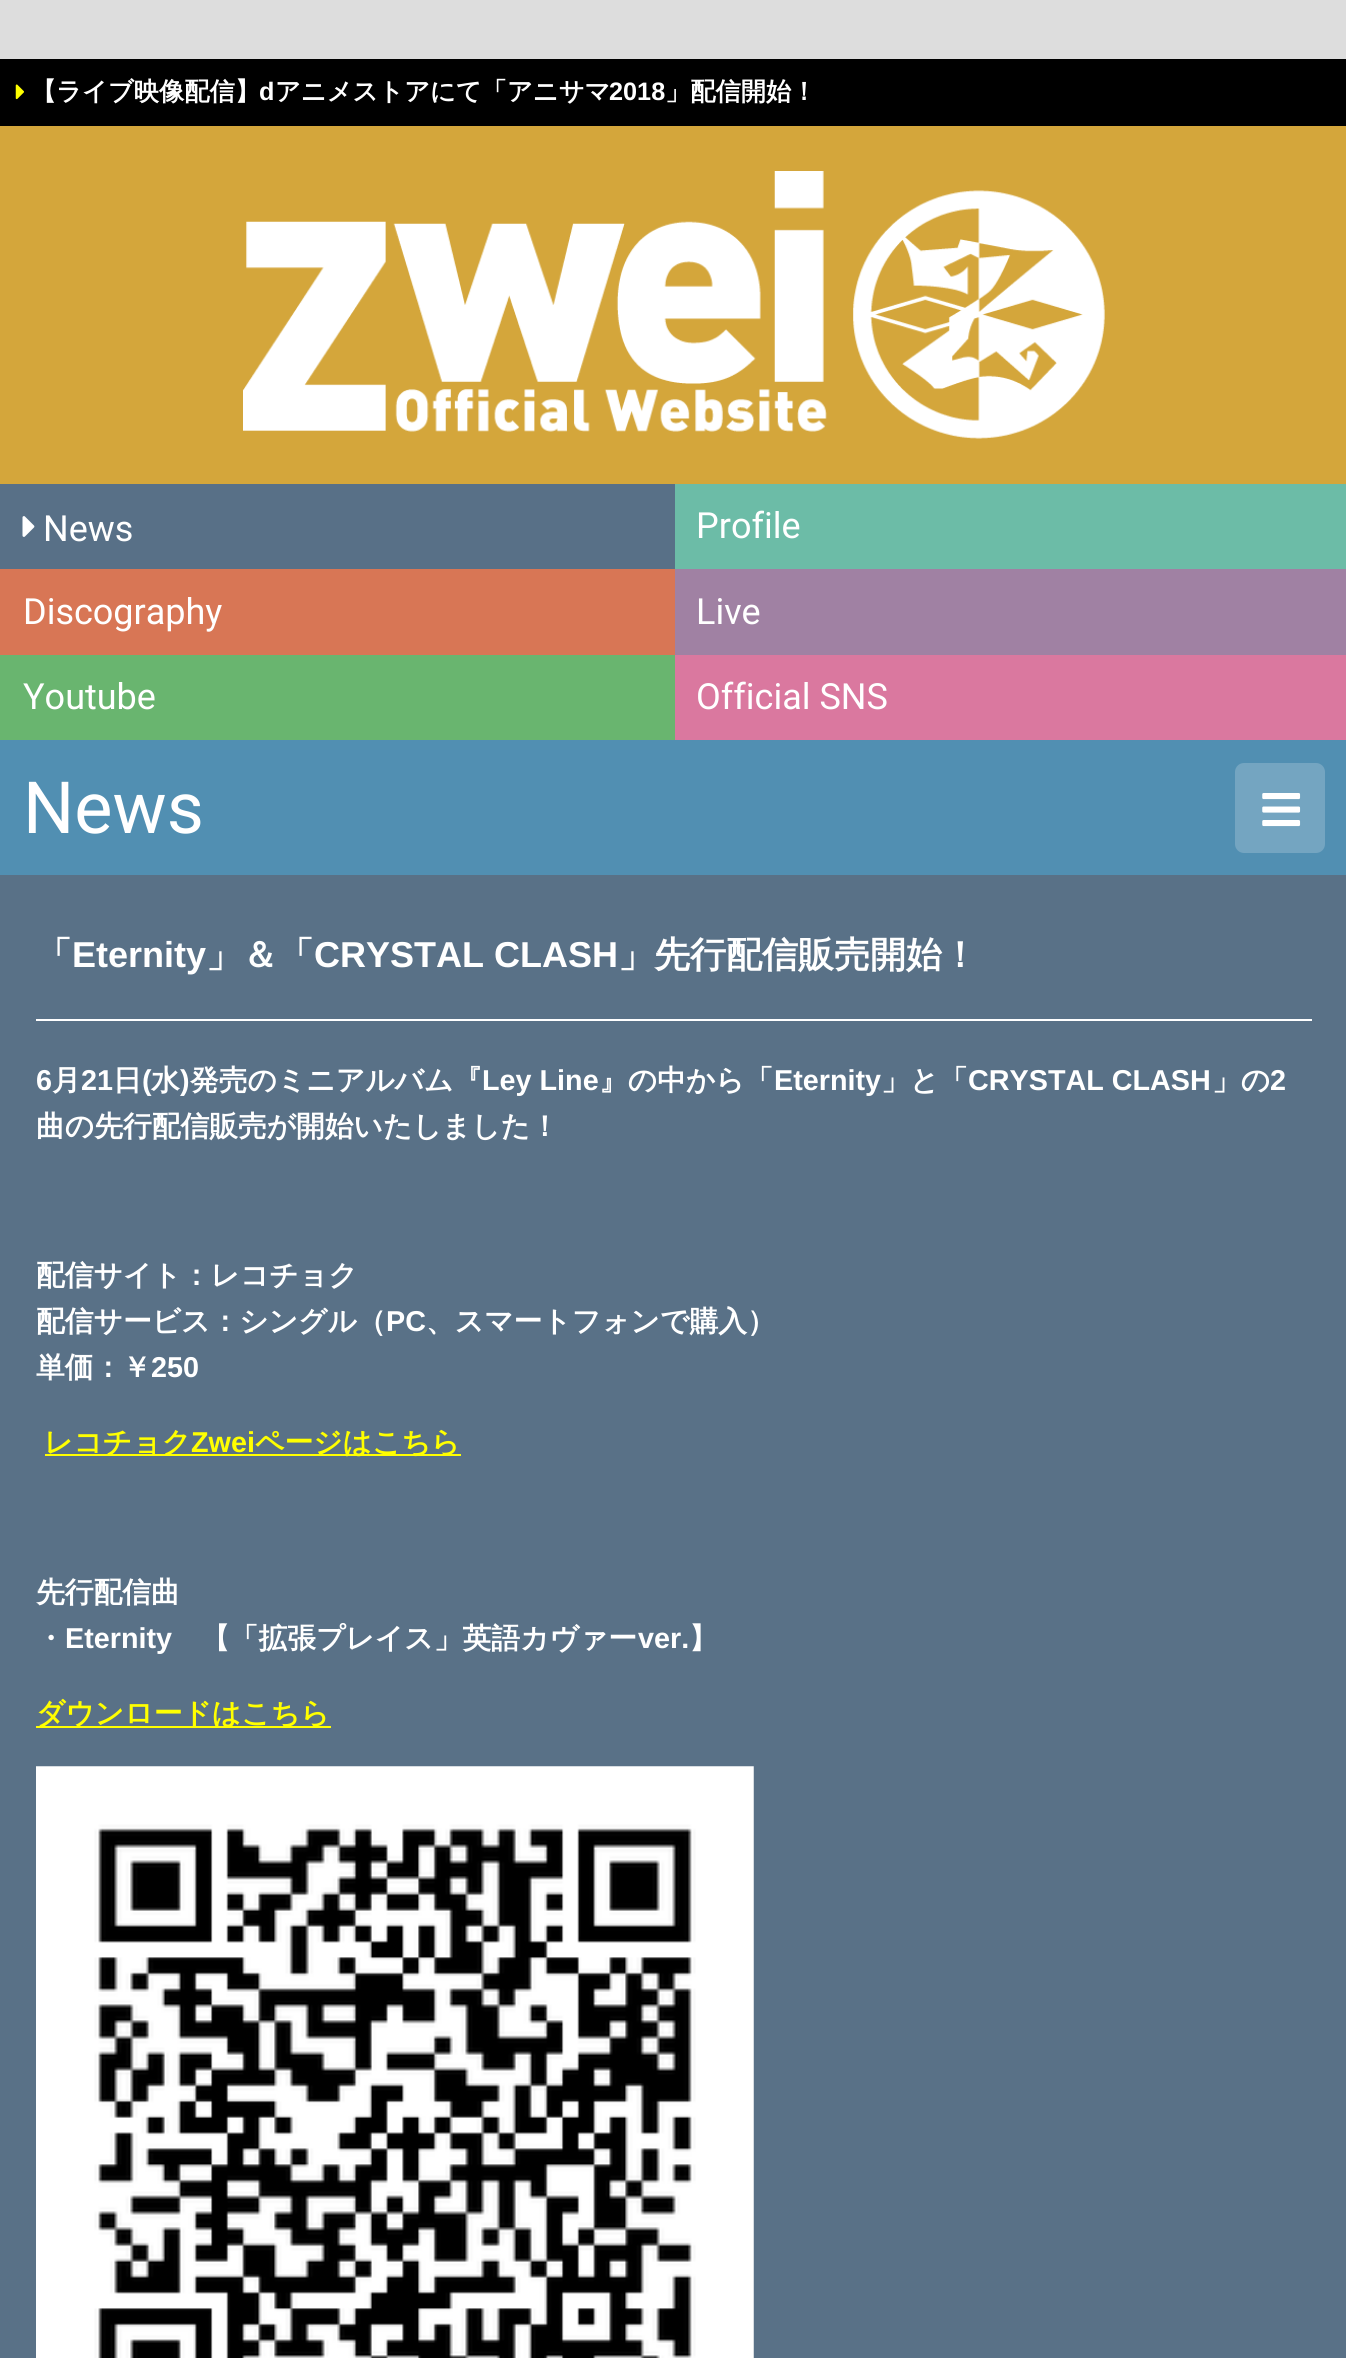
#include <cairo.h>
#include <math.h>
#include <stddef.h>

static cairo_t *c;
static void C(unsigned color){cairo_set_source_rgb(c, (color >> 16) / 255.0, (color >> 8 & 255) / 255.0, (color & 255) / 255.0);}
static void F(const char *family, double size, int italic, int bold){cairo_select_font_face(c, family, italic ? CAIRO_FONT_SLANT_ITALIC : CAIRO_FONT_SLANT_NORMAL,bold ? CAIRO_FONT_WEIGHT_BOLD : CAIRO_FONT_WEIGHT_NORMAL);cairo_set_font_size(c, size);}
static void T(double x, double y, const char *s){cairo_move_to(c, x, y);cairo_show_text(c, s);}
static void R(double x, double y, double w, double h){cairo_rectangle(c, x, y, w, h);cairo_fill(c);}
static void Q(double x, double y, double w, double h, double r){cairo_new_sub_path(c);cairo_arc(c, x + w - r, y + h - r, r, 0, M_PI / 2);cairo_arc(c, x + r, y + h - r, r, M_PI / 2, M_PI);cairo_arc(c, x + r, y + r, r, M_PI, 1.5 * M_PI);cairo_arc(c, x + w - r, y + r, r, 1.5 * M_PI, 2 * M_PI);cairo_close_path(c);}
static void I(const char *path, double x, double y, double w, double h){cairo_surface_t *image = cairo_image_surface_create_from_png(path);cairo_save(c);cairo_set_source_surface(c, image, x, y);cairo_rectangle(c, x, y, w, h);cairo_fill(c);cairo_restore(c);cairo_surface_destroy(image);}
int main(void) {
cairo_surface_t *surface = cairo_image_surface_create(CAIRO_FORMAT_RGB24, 1346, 2358);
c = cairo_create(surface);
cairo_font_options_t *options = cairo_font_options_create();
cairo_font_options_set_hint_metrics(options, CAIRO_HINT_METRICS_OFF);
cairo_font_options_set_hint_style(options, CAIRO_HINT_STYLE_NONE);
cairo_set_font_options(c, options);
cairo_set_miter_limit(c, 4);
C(0xdddddd);
cairo_paint(c);
C(0x000000);
R(0,59,1346,67);
I("1.png",15,84,9,16);
F("WenQuanYi Zen Hei",25.25,0,1);
C(0xffffff);
T(31,100,"【ライブ映像配信】");
F("Liberation Sans",25.25,0,1);
T(259,100,"d");
F("WenQuanYi Zen Hei",25.25,0,1);
T(275,100,"アニメストアにて「アニサマ");
F("Liberation Sans",25.25,0,1);
T(609,100,"2018");
F("WenQuanYi Zen Hei",25.25,0,1);
T(665,100,"」配信開始！");
C(0xd4a63b);
R(0,126,1346,358);
I("2.png",243,171,862,268);
C(0x587087);
R(0,484,675,85);
I("3.png",22,516,13,21);
F("Roboto",36,0,0);
C(0xffffff);
T(43,541,"News");
C(0x6cbca7);
R(675,484,671,85);
C(0xffffff);
T(696,538,"Profile");
C(0xd87655);
R(0,569,675,86);
C(0xffffff);
T(23,624,"Discography");
C(0xa081a3);
R(675,569,671,86);
C(0xffffff);
T(696,624,"Live");
C(0x69b56f);
R(0,655,675,85);
C(0xffffff);
T(23,709,"Youtube");
C(0xda789f);
R(675,655,671,85);
C(0xffffff);
T(696,709,"Official SNS");
C(0x518fb2);
R(0,740,1346,135);
F("Roboto",72,0,0);
C(0xffffff);
T(23,833,"News");
C(0x74a5c1);
Q(1235,763,90,90,9);
cairo_fill(c);
I("4.png",1262,793,39,34);
C(0x597187);
R(0,875,1346,1483);
C(0xffffff);
R(36,1019,1276,2);
F("WenQuanYi Zen Hei",36,0,1);
T(36,967,"「");
F("Liberation Sans",36,0,1);
T(72,967,"Eternity");
F("WenQuanYi Zen Hei",36,0,1);
T(206,967,"」＆「");
F("Liberation Sans",36,0,1);
T(314,967,"CRYSTAL CLASH");
F("WenQuanYi Zen Hei",36,0,1);
T(618,967,"」先行配信販売開始！");
F("Liberation Sans",28.75,0,1);
T(36,1090,"6");
F("WenQuanYi Zen Hei",28.75,0,1);
T(52,1090,"月");
F("Liberation Sans",28.75,0,1);
T(81,1090,"21");
F("WenQuanYi Zen Hei",28.75,0,1);
T(113,1090,"日");
F("Liberation Sans",28.75,0,1);
T(142,1090,"(");
F("WenQuanYi Zen Hei",28.75,0,1);
T(151,1090,"水");
F("Liberation Sans",28.75,0,1);
T(180,1090,")");
F("WenQuanYi Zen Hei",28.75,0,1);
T(190,1090,"発売のミニアルバム『");
F("Liberation Sans",28.75,0,1);
T(482,1090,"Ley Line");
F("WenQuanYi Zen Hei",28.75,0,1);
T(599,1090,"』の中から「");
F("Liberation Sans",28.75,0,1);
T(774,1090,"Eternity");
F("WenQuanYi Zen Hei",28.75,0,1);
T(881,1090,"」と「");
F("Liberation Sans",28.75,0,1);
T(968,1090,"CRYSTAL CLASH");
F("WenQuanYi Zen Hei",28.75,0,1);
T(1212,1090,"」の");
F("Liberation Sans",28.75,0,1);
T(1270,1090,"2");
F("WenQuanYi Zen Hei",28.75,0,1);
T(36,1136,"曲の先行配信販売が開始いたしました！");
T(36,1285,"配信サイト：レコチョク");
T(36,1331,"配信サービス：シングル（");
F("Liberation Sans",28.75,0,1);
T(386,1331,"PC");
F("WenQuanYi Zen Hei",28.75,0,1);
T(426,1331,"、スマートフォンで購入）");
T(36,1377,"単価：￥");
F("Liberation Sans",28.75,0,1);
T(151,1377,"250");
C(0xffff00);
R(45,1454,416,2);
F("WenQuanYi Zen Hei",28.75,0,1);
T(44,1452,"レコチョク");
F("Liberation Sans",28.75,0,1);
T(191,1452,"Zwei");
F("WenQuanYi Zen Hei",28.75,0,1);
T(255,1452,"ページはこちら");
C(0xffffff);
T(36,1602,"先行配信曲");
T(36,1648,"・");
F("Liberation Sans",28.75,0,1);
T(65,1648,"Eternity");
F("WenQuanYi Zen Hei",28.75,0,1);
T(201,1648,"【「拡張プレイス」英語カヴァー");
F("Liberation Sans",28.75,0,1);
T(638,1648,"ver.");
F("WenQuanYi Zen Hei",28.75,0,1);
T(689,1648,"】");
C(0xffff00);
R(36,1726,295,2);
T(36,1723,"ダウンロードはこちら");
I("5.png",36,1766,718,592);
cairo_surface_write_to_png(surface, "o.png");
cairo_font_options_destroy(options);
cairo_destroy(c);
cairo_surface_destroy(surface);
return 0;
}
